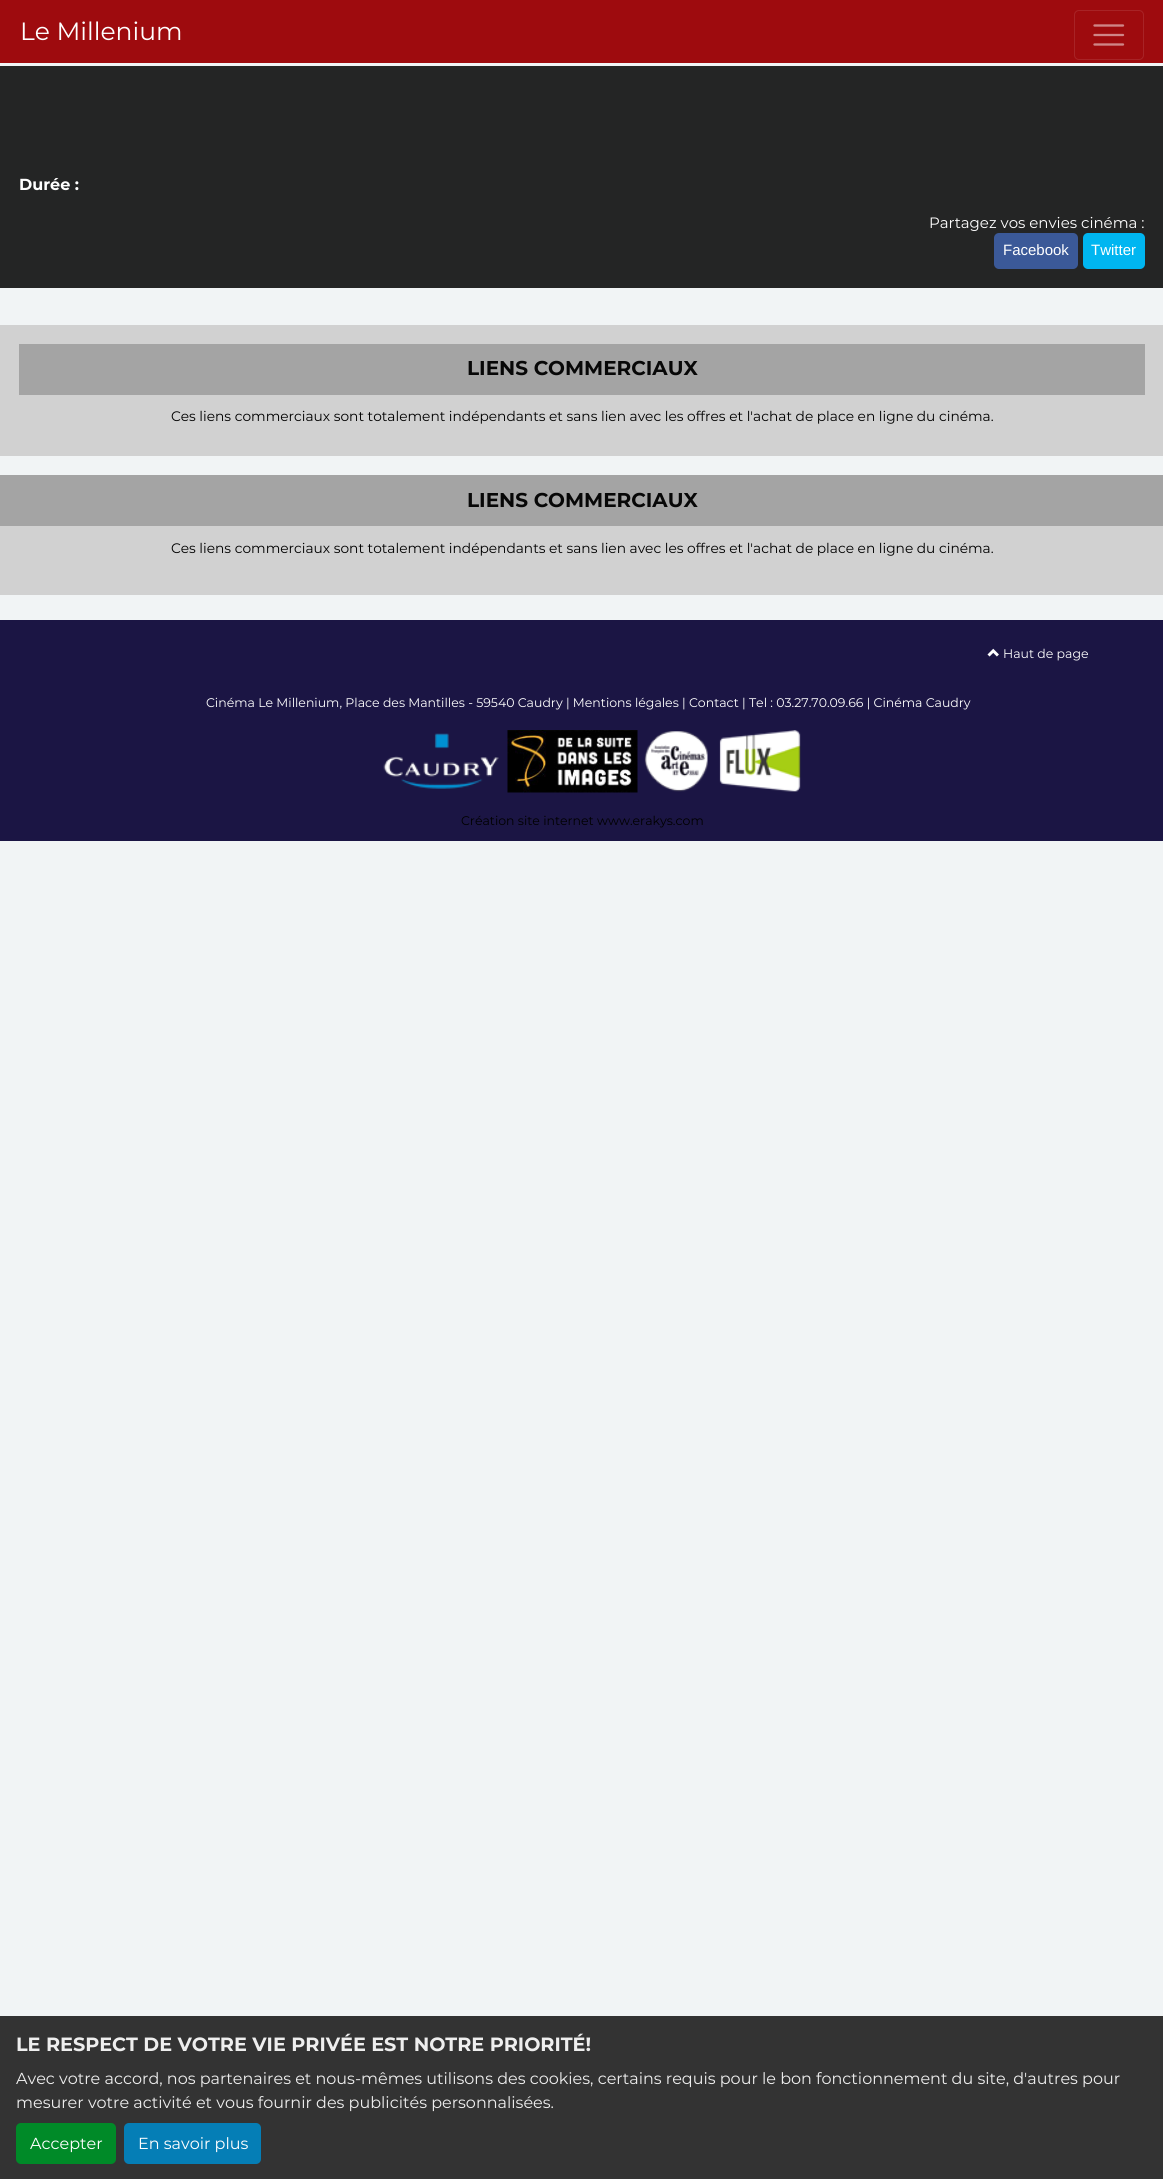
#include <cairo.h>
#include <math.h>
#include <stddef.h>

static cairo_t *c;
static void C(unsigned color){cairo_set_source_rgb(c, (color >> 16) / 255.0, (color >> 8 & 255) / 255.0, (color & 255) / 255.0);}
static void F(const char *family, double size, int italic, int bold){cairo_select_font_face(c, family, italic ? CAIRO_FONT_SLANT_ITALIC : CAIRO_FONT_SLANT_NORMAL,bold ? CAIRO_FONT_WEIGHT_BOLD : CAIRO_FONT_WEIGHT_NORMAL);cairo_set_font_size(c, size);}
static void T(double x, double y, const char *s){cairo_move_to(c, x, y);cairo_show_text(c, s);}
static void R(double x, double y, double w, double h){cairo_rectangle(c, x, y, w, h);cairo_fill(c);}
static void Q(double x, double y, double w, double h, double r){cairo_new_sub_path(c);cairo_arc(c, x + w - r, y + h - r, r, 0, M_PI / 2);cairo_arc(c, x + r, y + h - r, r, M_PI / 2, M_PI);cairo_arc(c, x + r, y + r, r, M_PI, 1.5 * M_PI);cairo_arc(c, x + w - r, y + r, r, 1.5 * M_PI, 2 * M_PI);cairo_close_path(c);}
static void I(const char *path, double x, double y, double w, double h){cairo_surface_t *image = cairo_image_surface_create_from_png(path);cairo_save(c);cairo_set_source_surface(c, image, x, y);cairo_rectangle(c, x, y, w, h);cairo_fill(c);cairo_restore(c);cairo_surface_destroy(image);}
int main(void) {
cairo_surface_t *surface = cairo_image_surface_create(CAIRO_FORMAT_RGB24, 1163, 2179);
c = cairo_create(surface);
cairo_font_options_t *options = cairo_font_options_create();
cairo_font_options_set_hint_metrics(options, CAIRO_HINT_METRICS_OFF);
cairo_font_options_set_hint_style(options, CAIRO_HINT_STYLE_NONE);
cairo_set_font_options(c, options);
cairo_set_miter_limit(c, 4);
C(0xf1f4f5);
cairo_paint(c);
C(0x9e0b0e);
R(0,0,1163,63);
F("Montserrat",25,0,0);
C(0xffffff);
T(20,40,"Le Millenium");
Q(1074.5,10.5,69,49,4.5);
C(0xa82326);
cairo_set_line_width(c,1);
cairo_stroke(c);
cairo_new_path(c);
cairo_move_to(c,1094.5,25.5);
cairo_line_to(c,1123,25.5);
cairo_move_to(c,1094.5,35);
cairo_line_to(c,1123,35);
cairo_move_to(c,1094.5,44.5);
cairo_line_to(c,1123,44.5);
C(0xcf8587);
cairo_set_line_width(c,2.3);
cairo_set_line_cap(c,CAIRO_LINE_CAP_ROUND);
cairo_stroke(c);
C(0x242525);
R(0,66,1163,222);
F("Montserrat",16,0,1);
C(0xffffff);
T(19,190,"Durée :");
F("Montserrat",15,0,0);
T(929,228,"Partagez vos envies cinéma :");
C(0x3b5998);
Q(994,233,84,36,5);
cairo_fill(c);
F("Liberation Sans",15,0,0);
C(0xffffff);
T(1003,255,"Facebook");
C(0x00b6f1);
Q(1083,233,62,36,5);
cairo_fill(c);
C(0xffffff);
T(1091,255,"Twitter");
C(0xd1d1d1);
R(0,325,1163,131);
C(0xa4a4a4);
R(19,344,1126,51);
F("Montserrat",20,0,1);
C(0x070707);
T(467,375,"LIENS COMMERCIAUX");
F("Montserrat",13.75,0,0);
C(0x000000);
T(171,421,"Ces liens commerciaux sont totalement indépendants et sans lien avec les offres et l'achat de place en ligne du cinéma.");
C(0xd1d1d1);
R(0,526,1163,69);
C(0xa4a4a4);
R(0,475,1163,51);
F("Montserrat",20,0,1);
C(0x070707);
T(467,507,"LIENS COMMERCIAUX");
F("Montserrat",13.75,0,0);
C(0x000000);
T(171,553,"Ces liens commerciaux sont totalement indépendants et sans lien avec les offres et l'achat de place en ligne du cinéma.");
C(0x1b1544);
R(0,620,1163,221);
I("1.png",987,648,12,9);
F("Montserrat",12.5,0,0);
C(0xffffff);
T(1003,658,"Haut de page");
T(206,707,"Cinéma Le Millenium, Place des Mantilles - 59540 Caudry | Mentions légales | Contact | Tel : 03.27.70.09.66 | Cinéma Caudry");
I("2.png",383,733,116,56);
I("3.png",507,730,131,63);
I("4.png",644,731,64,61);
I("5.png",719,730,82,62);
C(0x000000);
T(461,825,"Création site internet www.erakys.com");
C(0x333333);
R(0,2016,1163,163);
F("Montserrat",19.2,0,1);
C(0xeeeeee);
T(16,2051,"LE RESPECT DE VOTRE VIE PRIVÉE EST NOTRE PRIORITÉ!");
F("Montserrat",16,0,0);
T(16,2084,"Avec votre accord, nos partenaires et nous-mêmes utilisons des cookies, certains requis pour le bon fonctionnement du site, d'autres pour");
T(16,2108,"mesurer votre activité et vous fournir des publicités personnalisées.");
C(0x008a28);
Q(16,2123,100,41,5);
cairo_fill(c);
C(0xffffff);
T(30,2149,"Accepter");
C(0x057eb6);
Q(124,2123,137,41,5);
cairo_fill(c);
C(0xffffff);
T(138,2149,"En savoir plus");
cairo_surface_write_to_png(surface, "o.png");
cairo_font_options_destroy(options);
cairo_destroy(c);
cairo_surface_destroy(surface);
return 0;
}
